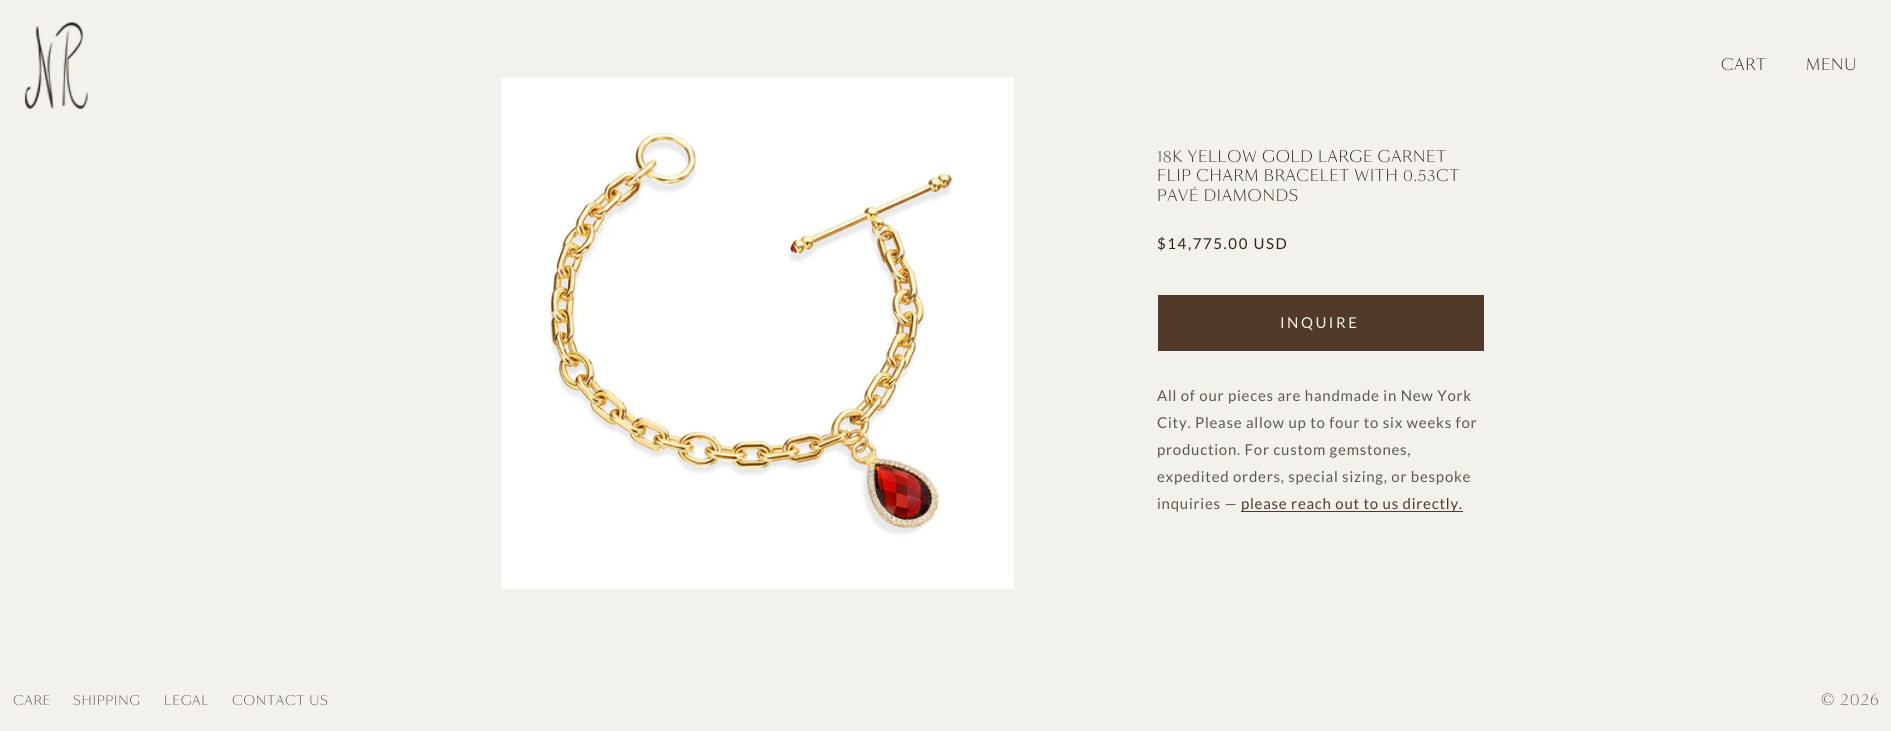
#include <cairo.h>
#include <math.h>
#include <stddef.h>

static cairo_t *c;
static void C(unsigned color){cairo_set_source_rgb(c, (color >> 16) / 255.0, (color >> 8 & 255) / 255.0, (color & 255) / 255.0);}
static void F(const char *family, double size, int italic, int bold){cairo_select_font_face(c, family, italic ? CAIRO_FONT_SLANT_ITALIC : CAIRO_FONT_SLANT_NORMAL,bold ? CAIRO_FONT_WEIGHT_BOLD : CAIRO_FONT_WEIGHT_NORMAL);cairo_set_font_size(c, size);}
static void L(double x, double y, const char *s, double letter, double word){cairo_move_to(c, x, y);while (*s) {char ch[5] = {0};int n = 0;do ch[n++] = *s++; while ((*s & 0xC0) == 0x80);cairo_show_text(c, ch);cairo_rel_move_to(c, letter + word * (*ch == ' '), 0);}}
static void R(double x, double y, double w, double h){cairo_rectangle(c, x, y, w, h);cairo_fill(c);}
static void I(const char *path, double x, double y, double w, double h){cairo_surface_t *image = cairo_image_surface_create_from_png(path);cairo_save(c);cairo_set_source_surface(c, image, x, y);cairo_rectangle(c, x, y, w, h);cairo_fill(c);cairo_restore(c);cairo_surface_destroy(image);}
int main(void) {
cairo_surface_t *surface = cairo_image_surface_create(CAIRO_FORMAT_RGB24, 1891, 731);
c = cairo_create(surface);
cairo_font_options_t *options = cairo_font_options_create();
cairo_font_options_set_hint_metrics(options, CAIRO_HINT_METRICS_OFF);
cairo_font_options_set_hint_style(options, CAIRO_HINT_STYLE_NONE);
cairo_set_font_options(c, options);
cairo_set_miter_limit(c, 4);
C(0xf2f1ec);
cairo_paint(c);
I("1.png",24,22,64,87);
F("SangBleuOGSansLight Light",15,0,0);
C(0x31221d);
L(1721,70,"CART",.75,0);
L(1806,70,"MENU",.75,0);
I("2.png",501,77,513,512);
L(1157,162,"18K YELLOW GOLD LARGE GARNET",.75,0);
L(1157,181,"FLIP CHARM BRACELET WITH 0.53CT",.75,0);
L(1157,201,"PAVÉ DIAMONDS",.75,0);
F("Lato",15,0,0);
L(1157,249,"$14,775.00 USD",1.6,0);
C(0x513929);
R(1158,295,326,56);
C(0xf2f1ec);
L(1280,328,"INQUIRE",2.5,0);
C(0x615651);
L(1157,401,"All of our pieces are handmade in New York",.75,0);
L(1157,428,"City. Please allow up to four to six weeks for",.75,0);
L(1157,455,"production. For custom gemstones,",.75,0);
L(1157,482,"expedited orders, special sizing, or bespoke",.75,0);
L(1157,509,"inquiries —",.75,0);
C(0x513929);
R(1241,511,222,1);
L(1241,509,"please reach out to us directly.",.75,0);
F("SangBleuOGSansLight Light",12.5,0,0);
C(0x615651);
L(13,705,"CARE",.75,0);
L(73,705,"SHIPPING",.75,0);
L(164,705,"LEGAL",.75,0);
L(232,705,"CONTACT US",.75,0);
F("SangBleuOGSansLight Light",15,0,0);
L(1821,705,"© 2026",1,0);
cairo_surface_write_to_png(surface, "o.png");
cairo_font_options_destroy(options);
cairo_destroy(c);
cairo_surface_destroy(surface);
return 0;
}
